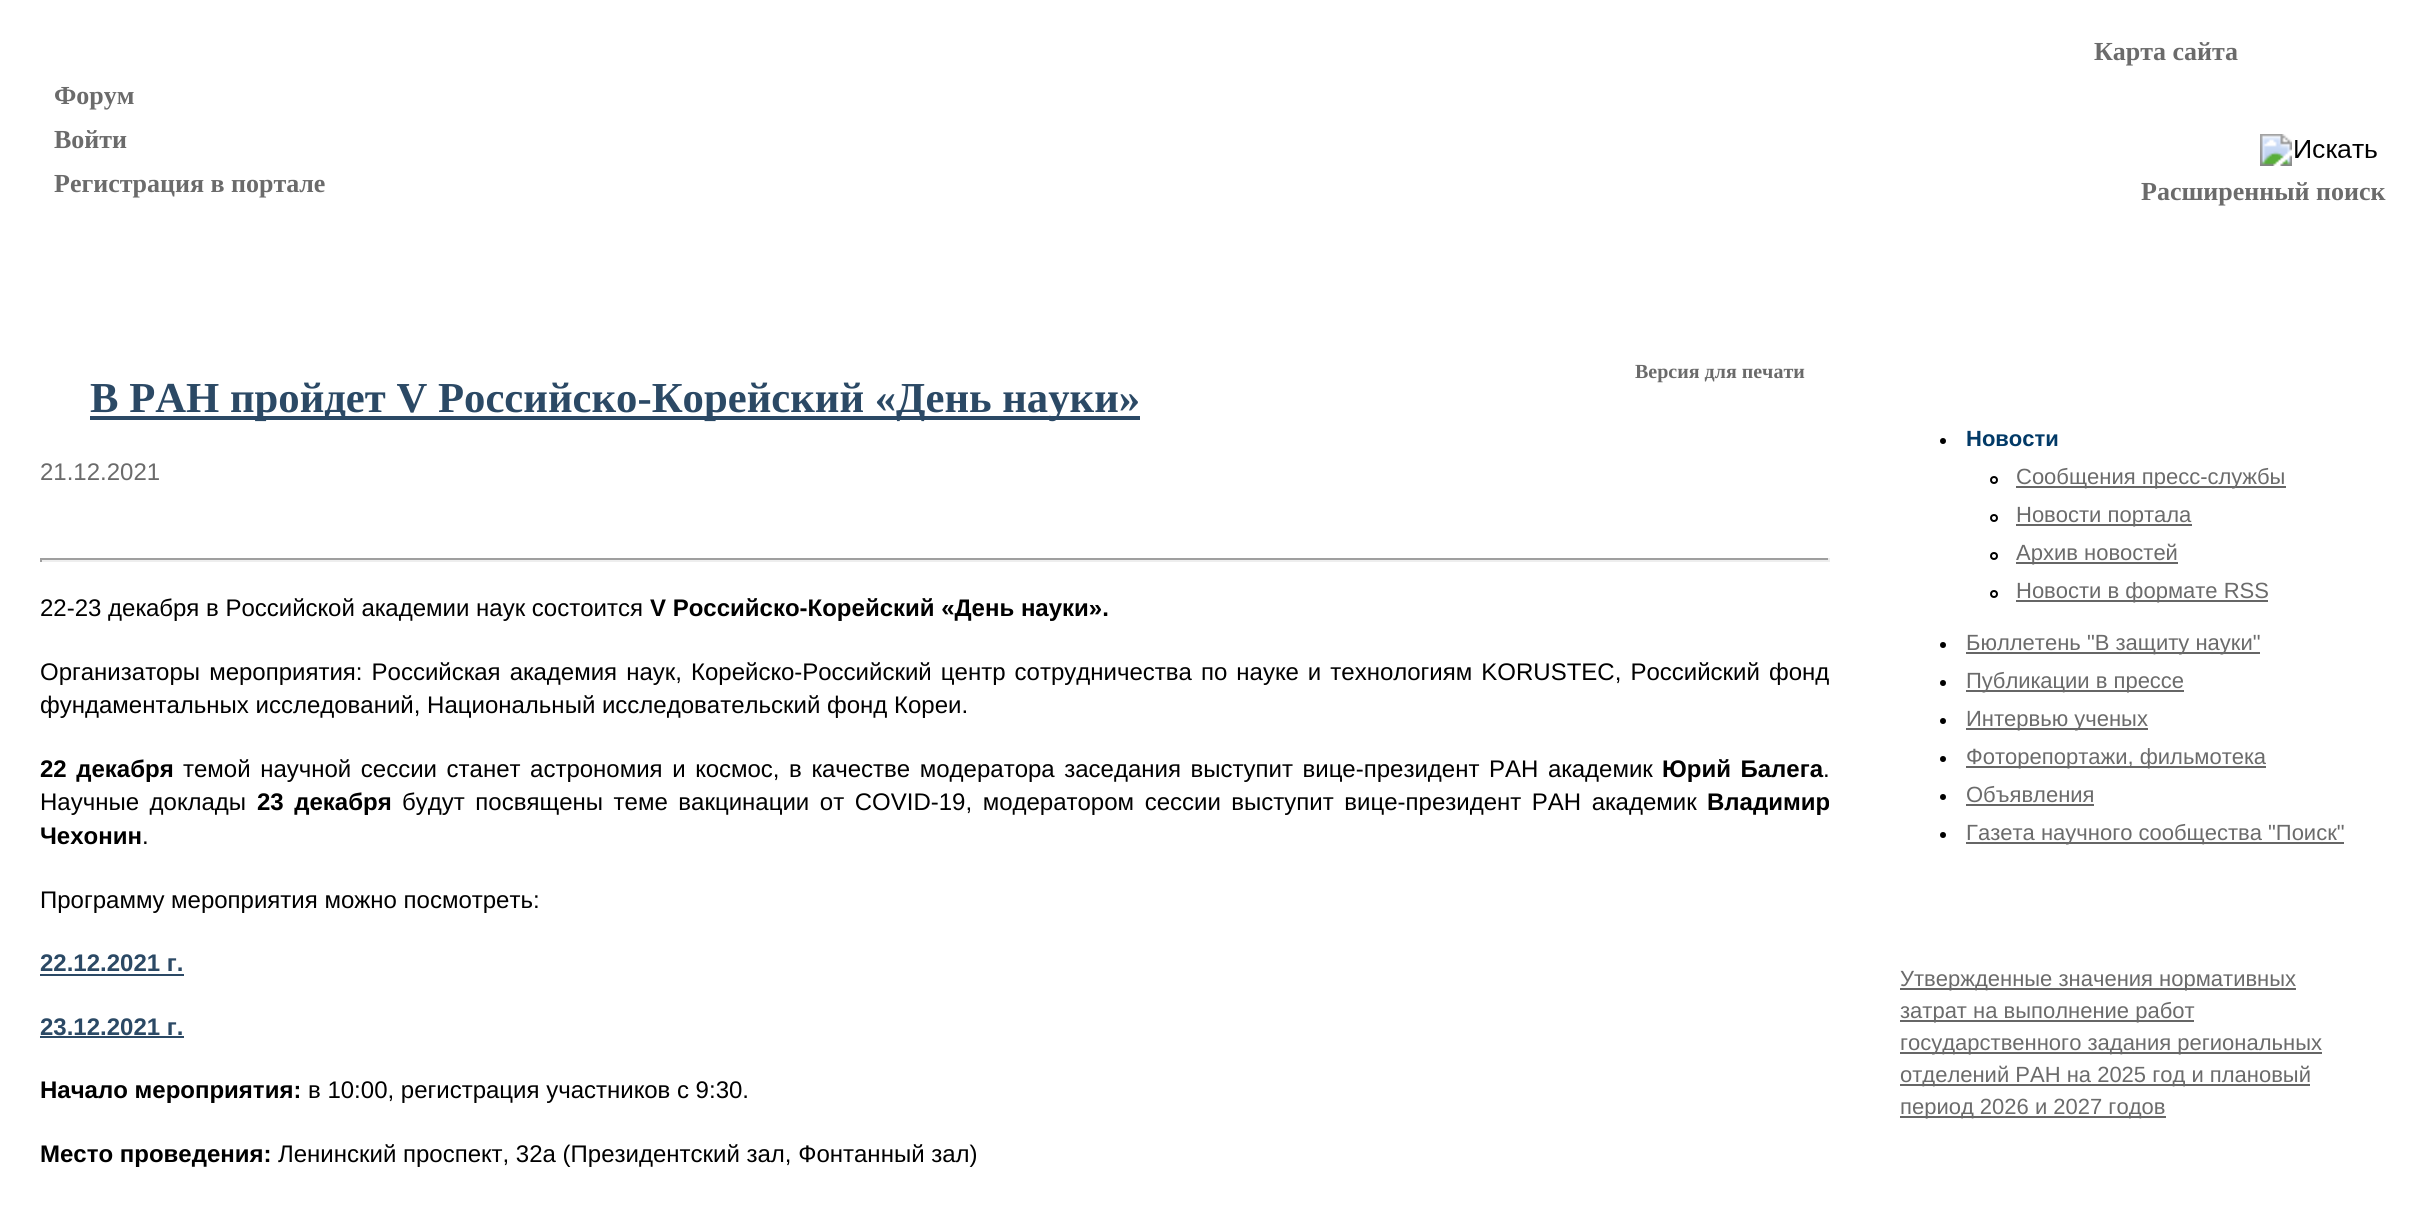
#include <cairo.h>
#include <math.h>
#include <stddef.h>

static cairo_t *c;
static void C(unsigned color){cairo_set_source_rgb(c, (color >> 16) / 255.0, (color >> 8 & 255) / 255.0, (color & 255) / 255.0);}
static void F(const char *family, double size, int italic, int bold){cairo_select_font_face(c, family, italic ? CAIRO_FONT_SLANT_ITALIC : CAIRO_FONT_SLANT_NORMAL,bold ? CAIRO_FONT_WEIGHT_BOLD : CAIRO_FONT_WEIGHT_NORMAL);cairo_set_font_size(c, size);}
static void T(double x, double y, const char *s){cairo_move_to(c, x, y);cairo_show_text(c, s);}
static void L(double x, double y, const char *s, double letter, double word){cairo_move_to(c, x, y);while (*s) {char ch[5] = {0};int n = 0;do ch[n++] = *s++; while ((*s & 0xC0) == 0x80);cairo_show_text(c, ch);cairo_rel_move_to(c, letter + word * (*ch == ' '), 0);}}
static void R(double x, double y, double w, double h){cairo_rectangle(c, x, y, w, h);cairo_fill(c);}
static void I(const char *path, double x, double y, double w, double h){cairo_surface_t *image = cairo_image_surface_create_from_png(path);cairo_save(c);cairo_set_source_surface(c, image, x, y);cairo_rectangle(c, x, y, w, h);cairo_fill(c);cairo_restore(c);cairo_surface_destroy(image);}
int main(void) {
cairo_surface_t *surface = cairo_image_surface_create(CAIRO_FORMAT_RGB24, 2410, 1205);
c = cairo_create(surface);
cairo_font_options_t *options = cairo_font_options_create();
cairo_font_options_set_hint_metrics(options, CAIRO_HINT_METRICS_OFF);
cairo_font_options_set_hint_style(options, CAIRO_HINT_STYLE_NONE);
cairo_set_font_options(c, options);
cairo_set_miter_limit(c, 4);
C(0xffffff);
cairo_paint(c);
F("Liberation Serif",26,0,1);
C(0x6b6b6b);
T(54,104,"Форум");
T(54,148,"Войти");
T(54,192,"Регистрация в портале");
T(2094,60,"Карта сайта");
I("1.png",2260,134,117,32);
T(2141,200,"Расширенный поиск");
F("Liberation Serif",20,0,1);
T(1635,378,"Версия для печати");
C(0x2b4965);
R(90,416,1050,4);
F("Liberation Serif",42.7,0,1);
T(90,412,"В РАН пройдет V Российско-Корейский «День науки»");
F("Liberation Sans",24,0,0);
C(0x6b6b6b);
T(40,480,"21.12.2021");
C(0x9f9f9f);
R(40,558,1790,2);
C(0xeeeeee);
R(1828,558,2,4);
R(40,560,1790,2);
C(0x9f9f9f);
R(40,558,2,4);
C(0x000000);
T(40,616,"22-23 декабря в Российской академии наук состоится");
F("Liberation Sans",24,0,1);
T(650,616,"V Российско-Корейский «День науки».");
F("Liberation Sans",24,0,0);
L(40,680,"Организаторы мероприятия: Российская академия наук, Корейско-Российский центр сотрудничества по науке и технологиям KORUSTEC, Российский фонд",0,2.4);
T(40,713,"фундаментальных исследований, Национальный исследовательский фонд Кореи.");
F("Liberation Sans",24,0,1);
L(40,777,"22 декабря",0,2.9);
F("Liberation Sans",24,0,0);
L(183,777,"темой научной сессии станет астрономия и космос, в качестве модератора заседания выступит вице-президент РАН академик",0,2.9);
F("Liberation Sans",24,0,1);
L(1662,777,"Юрий Балега",0,2.9);
F("Liberation Sans",24,0,0);
T(1823,777,".");
L(40,810,"Научные доклады",0,3.9);
F("Liberation Sans",24,0,1);
L(257,810,"23 декабря",0,3.9);
F("Liberation Sans",24,0,0);
L(402,810,"будут посвящены теме вакцинации от COVID-19, модератором сессии выступит вице-президент РАН академик",0,3.9);
F("Liberation Sans",24,0,1);
T(1707,810,"Владимир");
T(40,844,"Чехонин");
F("Liberation Sans",24,0,0);
T(142,844,".");
T(40,908,"Программу мероприятия можно посмотреть:");
F("Liberation Sans",24,0,1);
C(0x2b4965);
T(40,971,"22.12.2021 г.");
R(40,974,144,2);
T(40,1035,"23.12.2021 г.");
R(40,1036,144,2);
C(0x000000);
T(40,1098,"Начало мероприятия:");
F("Liberation Sans",24,0,0);
T(308,1098,"в 10:00, регистрация участников с 9:30.");
F("Liberation Sans",24,0,1);
T(40,1162,"Место проведения:");
F("Liberation Sans",24,0,0);
T(278,1162,"Ленинский проспект, 32а (Президентский зал, Фонтанный зал)");
cairo_new_path(c);
cairo_arc(c,1943,441,3,0,2 * M_PI);
cairo_fill(c);
F("Liberation Sans",22,0,1);
C(0x023a67);
T(1966,446,"Новости");
cairo_new_path(c);
cairo_arc(c,1994,480,3,0,2 * M_PI);
C(0x000000);
cairo_stroke(c);
C(0x666666);
R(2016,486,270,2);
F("Liberation Sans",22,0,0);
C(0x6b6b6b);
T(2016,484,"Сообщения пресс-службы");
cairo_new_path(c);
cairo_arc(c,1994,518,3,0,2 * M_PI);
C(0x000000);
cairo_stroke(c);
C(0x666666);
R(2016,524,176,2);
C(0x6b6b6b);
T(2016,522,"Новости портала");
cairo_new_path(c);
cairo_arc(c,1994,556,3,0,2 * M_PI);
C(0x000000);
cairo_stroke(c);
C(0x666666);
R(2016,562,162,2);
C(0x6b6b6b);
T(2016,560,"Архив новостей");
cairo_new_path(c);
cairo_arc(c,1994,594,3,0,2 * M_PI);
C(0x000000);
cairo_stroke(c);
C(0x666666);
R(2016,600,252,2);
C(0x6b6b6b);
T(2016,598,"Новости в формате RSS");
C(0x000000);
cairo_new_path(c);
cairo_arc(c,1943,645,3,0,2 * M_PI);
cairo_fill(c);
C(0x666666);
R(1966,652,294,2);
C(0x6b6b6b);
T(1966,650,"Бюллетень \"В защиту науки\"");
C(0x000000);
cairo_new_path(c);
cairo_arc(c,1943,683,3,0,2 * M_PI);
cairo_fill(c);
C(0x666666);
R(1966,690,218,2);
C(0x6b6b6b);
T(1966,688,"Публикации в прессе");
C(0x000000);
cairo_new_path(c);
cairo_arc(c,1943,721,3,0,2 * M_PI);
cairo_fill(c);
C(0x666666);
R(1966,728,182,2);
C(0x6b6b6b);
T(1966,726,"Интервью ученых");
C(0x000000);
cairo_new_path(c);
cairo_arc(c,1943,759,3,0,2 * M_PI);
cairo_fill(c);
C(0x666666);
R(1966,766,300,2);
C(0x6b6b6b);
T(1966,764,"Фоторепортажи, фильмотека");
C(0x000000);
cairo_new_path(c);
cairo_arc(c,1943,797,3,0,2 * M_PI);
cairo_fill(c);
C(0x6b6b6b);
T(1966,802,"Объявления");
C(0x666666);
R(1966,804,128,2);
C(0x000000);
cairo_new_path(c);
cairo_arc(c,1943,835,3,0,2 * M_PI);
cairo_fill(c);
C(0x666666);
R(1966,842,378,2);
C(0x6b6b6b);
T(1966,840,"Газета научного сообщества \"Поиск\"");
C(0x666666);
R(1900,988,396,2);
C(0x6b6b6b);
T(1900,986,"Утвержденные значения нормативных");
C(0x666666);
R(1900,1020,294,2);
C(0x6b6b6b);
T(1900,1018,"затрат на выполнение работ");
C(0x666666);
R(1900,1052,422,2);
C(0x6b6b6b);
T(1900,1050,"государственного задания региональных");
C(0x666666);
R(1900,1084,410,2);
C(0x6b6b6b);
T(1900,1082,"отделений РАН на 2025 год и плановый");
C(0x666666);
R(1900,1116,266,2);
C(0x6b6b6b);
T(1900,1114,"период 2026 и 2027 годов");
cairo_surface_write_to_png(surface, "o.png");
cairo_font_options_destroy(options);
cairo_destroy(c);
cairo_surface_destroy(surface);
return 0;
}
